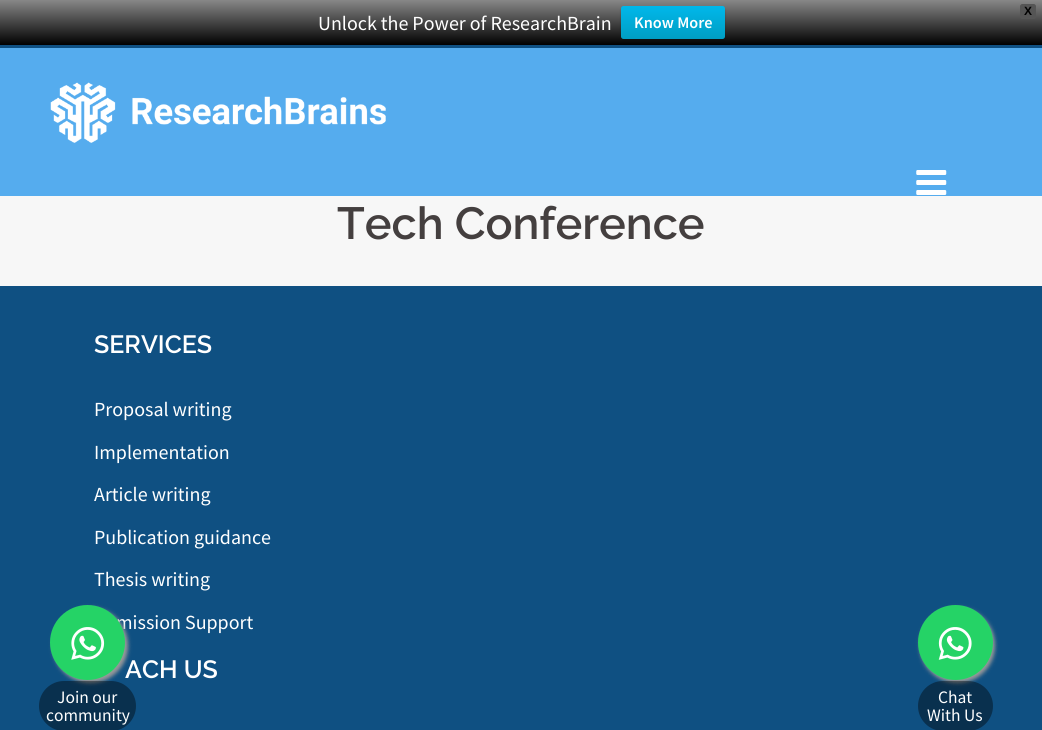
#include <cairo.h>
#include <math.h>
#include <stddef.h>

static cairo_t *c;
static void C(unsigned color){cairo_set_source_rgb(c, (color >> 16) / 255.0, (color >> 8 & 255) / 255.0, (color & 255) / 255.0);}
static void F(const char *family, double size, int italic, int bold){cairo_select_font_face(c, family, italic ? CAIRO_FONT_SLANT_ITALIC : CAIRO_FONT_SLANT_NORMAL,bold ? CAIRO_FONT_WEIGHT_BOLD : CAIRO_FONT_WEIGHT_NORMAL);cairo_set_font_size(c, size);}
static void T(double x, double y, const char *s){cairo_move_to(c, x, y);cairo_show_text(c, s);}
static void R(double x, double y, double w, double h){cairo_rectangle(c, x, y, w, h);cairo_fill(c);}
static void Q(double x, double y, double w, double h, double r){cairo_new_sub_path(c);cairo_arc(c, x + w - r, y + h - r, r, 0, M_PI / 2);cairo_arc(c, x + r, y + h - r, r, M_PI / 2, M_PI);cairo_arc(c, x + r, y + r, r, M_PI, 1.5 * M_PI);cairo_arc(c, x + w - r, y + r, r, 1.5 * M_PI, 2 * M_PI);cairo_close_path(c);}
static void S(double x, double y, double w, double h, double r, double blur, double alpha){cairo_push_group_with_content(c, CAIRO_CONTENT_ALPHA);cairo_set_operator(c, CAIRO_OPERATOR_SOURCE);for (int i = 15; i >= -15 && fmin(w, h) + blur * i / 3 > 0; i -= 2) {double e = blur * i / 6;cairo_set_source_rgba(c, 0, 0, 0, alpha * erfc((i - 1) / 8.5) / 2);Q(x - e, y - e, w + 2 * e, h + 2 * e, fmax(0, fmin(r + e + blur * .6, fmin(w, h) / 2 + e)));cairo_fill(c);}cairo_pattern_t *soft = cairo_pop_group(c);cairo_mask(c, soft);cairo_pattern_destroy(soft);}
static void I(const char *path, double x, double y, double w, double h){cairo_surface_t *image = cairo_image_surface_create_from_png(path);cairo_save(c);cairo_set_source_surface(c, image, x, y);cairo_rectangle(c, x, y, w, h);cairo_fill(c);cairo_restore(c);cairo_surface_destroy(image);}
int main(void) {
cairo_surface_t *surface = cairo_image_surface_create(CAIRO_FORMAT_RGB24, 1042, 730);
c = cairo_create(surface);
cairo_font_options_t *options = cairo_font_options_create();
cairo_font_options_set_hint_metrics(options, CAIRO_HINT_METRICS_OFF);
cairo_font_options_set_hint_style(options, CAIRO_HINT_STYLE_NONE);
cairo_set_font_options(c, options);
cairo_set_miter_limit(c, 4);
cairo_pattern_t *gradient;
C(0xf7f7f7);
cairo_paint(c);
gradient = cairo_pattern_create_linear(521,0,521,45);
cairo_pattern_add_color_stop_rgba(gradient,0,0.533,0.533,0.533,1);
cairo_pattern_add_color_stop_rgba(gradient,1,0,0,0,1);
cairo_set_source(c,gradient);
cairo_pattern_destroy(gradient);
R(0,0,1042,45);
C(0x555555);
Q(1020.5,4.5,15,14,2);
cairo_fill_preserve(c);
cairo_set_line_width(c,1);
cairo_stroke(c);
F("Liberation Sans",12,0,1);
C(0x000000);
T(1024,15,"X");
F("Source Sans Pro",20,0,0);
C(0xffffff);
T(318,30,"Unlock the Power of ResearchBrain");
C(0x000000);
S(621,8,104,32,2.5,1,.2);
gradient = cairo_pattern_create_linear(673,6.2,673,39);
cairo_pattern_add_color_stop_rgba(gradient,0,0,0.718,0.918,1);
cairo_pattern_add_color_stop_rgba(gradient,1,0,0.62,0.765,1);
cairo_set_source(c,gradient);
cairo_pattern_destroy(gradient);
Q(621,6,104,33,2.5);
cairo_fill(c);
F("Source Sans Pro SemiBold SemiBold",16.25,0,0);
C(0xffffff);
T(634,28,"Know More");
C(0x55acee);
R(0,48,1042,148);
C(0x0f5082);
R(0,45,1042,3);
I("1.png",50,82,336,61);
I("2.png",916,170,31,25);
F("Raleway SemiBold",45,0,0);
C(0x443f3f);
T(337,239,"Tech Conference");
C(0x0f5082);
R(0,286,1042,444);
F("Raleway SemiBold",25,0,0);
C(0xffffff);
T(94,353,"SERVICES");
F("Source Sans Pro",20,0,0);
T(94,416,"Proposal writing");
T(94,459,"Implementation");
T(94,501,"Article writing");
T(94,544,"Publication guidance");
T(94,586,"Thesis writing");
T(116,629,"mission Support");
F("Raleway SemiBold",25,0,0);
T(125,678,"ACH US");
C(0x999999);
S(53,608,75,75,37.5,2,1);
C(0x25d366);
cairo_arc(c,87.5,642.5,37.5,0,2 * M_PI);
cairo_fill(c);
I("3.png",71,627,34,33);
cairo_set_source_rgba(c,0,0,0,0.4);
Q(39,681,97,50,25);
cairo_fill(c);
F("Source Sans Pro",17.5,0,0);
C(0xffffff);
T(57,703,"Join our");
T(46,721,"community");
C(0x999999);
S(920,608,75,75,37.5,2,1);
C(0x25d366);
cairo_arc(c,955.5,642.5,37.5,0,2 * M_PI);
cairo_fill(c);
I("4.png",938,627,34,33);
cairo_set_source_rgba(c,0,0,0,0.4);
Q(918,681,75,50,25);
cairo_fill(c);
C(0xffffff);
T(938,703,"Chat");
T(927,721,"With Us");
cairo_surface_write_to_png(surface, "o.png");
cairo_font_options_destroy(options);
cairo_destroy(c);
cairo_surface_destroy(surface);
return 0;
}
